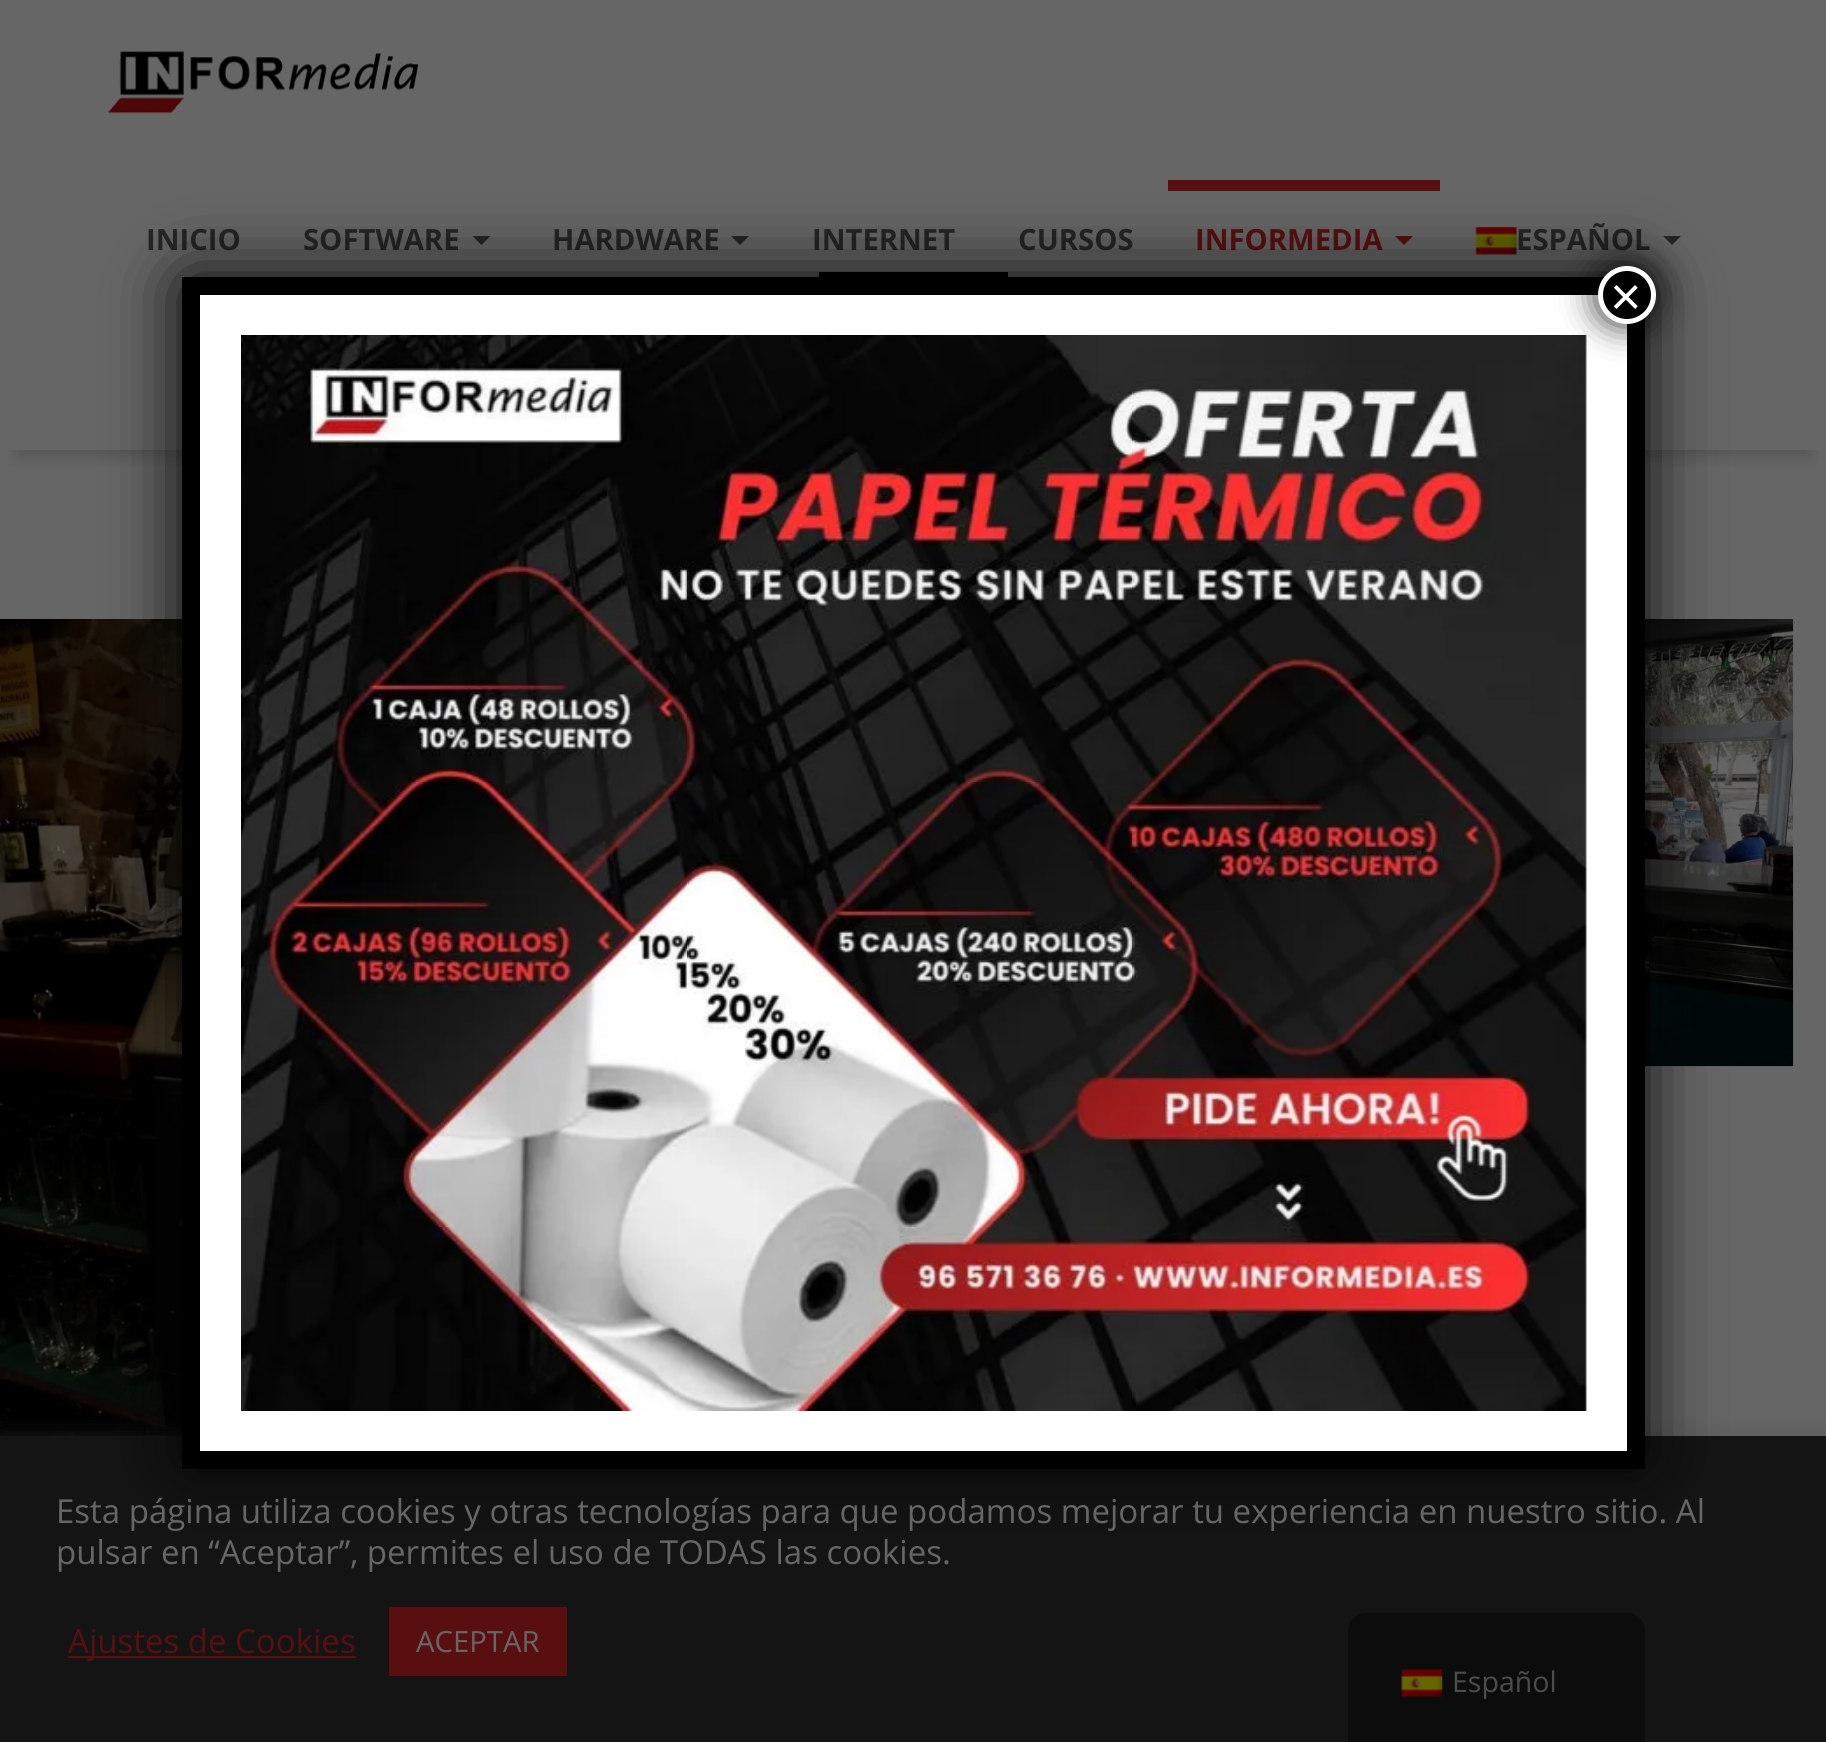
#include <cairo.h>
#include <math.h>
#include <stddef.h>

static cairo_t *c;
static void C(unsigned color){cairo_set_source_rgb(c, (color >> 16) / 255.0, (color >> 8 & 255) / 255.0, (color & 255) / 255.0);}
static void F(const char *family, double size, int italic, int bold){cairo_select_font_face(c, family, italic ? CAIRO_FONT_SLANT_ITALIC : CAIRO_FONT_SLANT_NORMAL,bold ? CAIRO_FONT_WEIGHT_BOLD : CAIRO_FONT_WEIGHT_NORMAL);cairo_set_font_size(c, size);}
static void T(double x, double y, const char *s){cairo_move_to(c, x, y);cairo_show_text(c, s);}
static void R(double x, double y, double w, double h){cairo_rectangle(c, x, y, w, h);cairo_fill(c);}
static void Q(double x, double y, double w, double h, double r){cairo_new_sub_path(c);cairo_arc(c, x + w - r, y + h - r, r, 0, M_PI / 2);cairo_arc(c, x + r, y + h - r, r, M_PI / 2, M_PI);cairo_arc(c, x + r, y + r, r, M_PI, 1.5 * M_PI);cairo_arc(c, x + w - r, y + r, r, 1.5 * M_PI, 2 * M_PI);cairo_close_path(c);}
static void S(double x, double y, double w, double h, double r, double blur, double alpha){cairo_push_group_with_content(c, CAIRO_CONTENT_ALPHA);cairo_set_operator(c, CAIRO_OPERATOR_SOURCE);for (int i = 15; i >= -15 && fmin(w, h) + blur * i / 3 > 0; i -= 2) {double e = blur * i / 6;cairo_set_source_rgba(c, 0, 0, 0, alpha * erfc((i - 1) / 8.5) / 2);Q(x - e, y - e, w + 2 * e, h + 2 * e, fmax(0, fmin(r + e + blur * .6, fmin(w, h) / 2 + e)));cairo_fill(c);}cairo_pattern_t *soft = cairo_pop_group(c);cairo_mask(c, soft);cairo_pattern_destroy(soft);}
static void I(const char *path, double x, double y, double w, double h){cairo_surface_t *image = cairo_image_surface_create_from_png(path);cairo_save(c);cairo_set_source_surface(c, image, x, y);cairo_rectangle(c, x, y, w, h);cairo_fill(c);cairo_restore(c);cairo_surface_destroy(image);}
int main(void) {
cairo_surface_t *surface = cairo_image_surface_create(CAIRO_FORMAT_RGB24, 1826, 1742);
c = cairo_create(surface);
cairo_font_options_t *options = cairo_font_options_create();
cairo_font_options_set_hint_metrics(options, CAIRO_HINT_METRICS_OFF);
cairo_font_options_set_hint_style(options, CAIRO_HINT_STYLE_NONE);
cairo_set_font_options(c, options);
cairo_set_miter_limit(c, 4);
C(0x666666);
cairo_paint(c);
cairo_save(c);
cairo_rectangle(c,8,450,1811,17);
cairo_clip(c);
C(0x000000);
S(18,41,1791,414,0,9,.2);
cairo_restore(c);
I("1.png",108,51,311,63);
F("Open Sans",29.25,0,1);
C(0x252525);
T(146,250,"INICIO");
T(303,250,"SOFTWARE");
cairo_new_path(c);
cairo_move_to(c,472.5,236);
cairo_line_to(c,490.5,236);
cairo_line_to(c,481.5,245);
cairo_close_path(c);
cairo_fill(c);
T(552,250,"HARDWARE");
cairo_new_path(c);
cairo_move_to(c,731,236);
cairo_line_to(c,749,236);
cairo_line_to(c,740,245);
cairo_close_path(c);
cairo_fill(c);
T(812,250,"INTERNET");
T(1018,250,"CURSOS");
C(0x590f0f);
R(1168,180,272,11);
T(1195,250,"INFORMEDIA");
cairo_new_path(c);
cairo_move_to(c,1395,236);
cairo_line_to(c,1413,236);
cairo_line_to(c,1404,245);
cairo_close_path(c);
cairo_fill(c);
I("2.png",1475,227,42,28);
C(0x252525);
T(1516,250,"ESPAÑOL");
cairo_new_path(c);
cairo_move_to(c,1663,236);
cairo_line_to(c,1681,236);
cairo_line_to(c,1672,245);
cairo_close_path(c);
cairo_fill(c);
C(0x000000);
R(819,272,189,5);
I("3.png",0,619,182,817);
I("4.png",1645,619,149,448);
C(0x454444);
S(0,1433,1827,309,0,11,.3);
C(0x141414);
R(0,1436,1826,306);
C(0x020202);
S(182,277,1463,1192,7,34,1);
C(0xffffff);
R(200,295,1427,1156);
cairo_new_path(c);
cairo_move_to(c,191,286);
cairo_line_to(c,1636,286);
cairo_line_to(c,1636,1460);
cairo_line_to(c,191,1460);
cairo_close_path(c);
C(0x000000);
cairo_set_line_width(c,18);
cairo_stroke(c);
I("5.png",241,335,1346,1076);
C(0x020202);
S(1595,263,63,63,31.5,17,.75);
C(0x000000);
cairo_arc(c,1627,295,26.5,0,2 * M_PI);
cairo_fill_preserve(c);
C(0xffffff);
cairo_set_line_width(c,5);
cairo_stroke(c);
F("Liberation Sans",54,0,0);
T(1610,315,"×");
F("Open Sans",33,0,0);
C(0x666666);
T(56,1523,"Esta página utiliza cookies y otras tecnologías para que podamos mejorar tu experiencia en nuestro sitio. Al");
T(56,1564,"pulsar en “Aceptar”, permites el uso de TODAS las cookies.");
C(0x590f0f);
R(68,1656,288,2);
T(68,1653,"Ajustes de Cookies");
R(389,1607,178,69);
F("Open Sans",29.25,0,0);
C(0x666666);
T(416,1652,"ACEPTAR");
C(0x0c0c0c);
cairo_new_path(c);
cairo_move_to(c,1366,1613);
cairo_line_to(c,1627,1613);
cairo_curve_to(c,1637,1613,1645,1621,1645,1631);
cairo_line_to(c,1645,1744);
cairo_line_to(c,1348,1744);
cairo_line_to(c,1348,1631);
cairo_curve_to(c,1348,1621,1356,1613,1366,1613);
cairo_close_path(c);
cairo_fill(c);
I("6.png",1401,1669,42,28);
F("Open Sans",28.5,0,0);
C(0x4c4c4c);
T(1452,1692,"Español");
cairo_surface_write_to_png(surface, "o.png");
cairo_font_options_destroy(options);
cairo_destroy(c);
cairo_surface_destroy(surface);
return 0;
}
